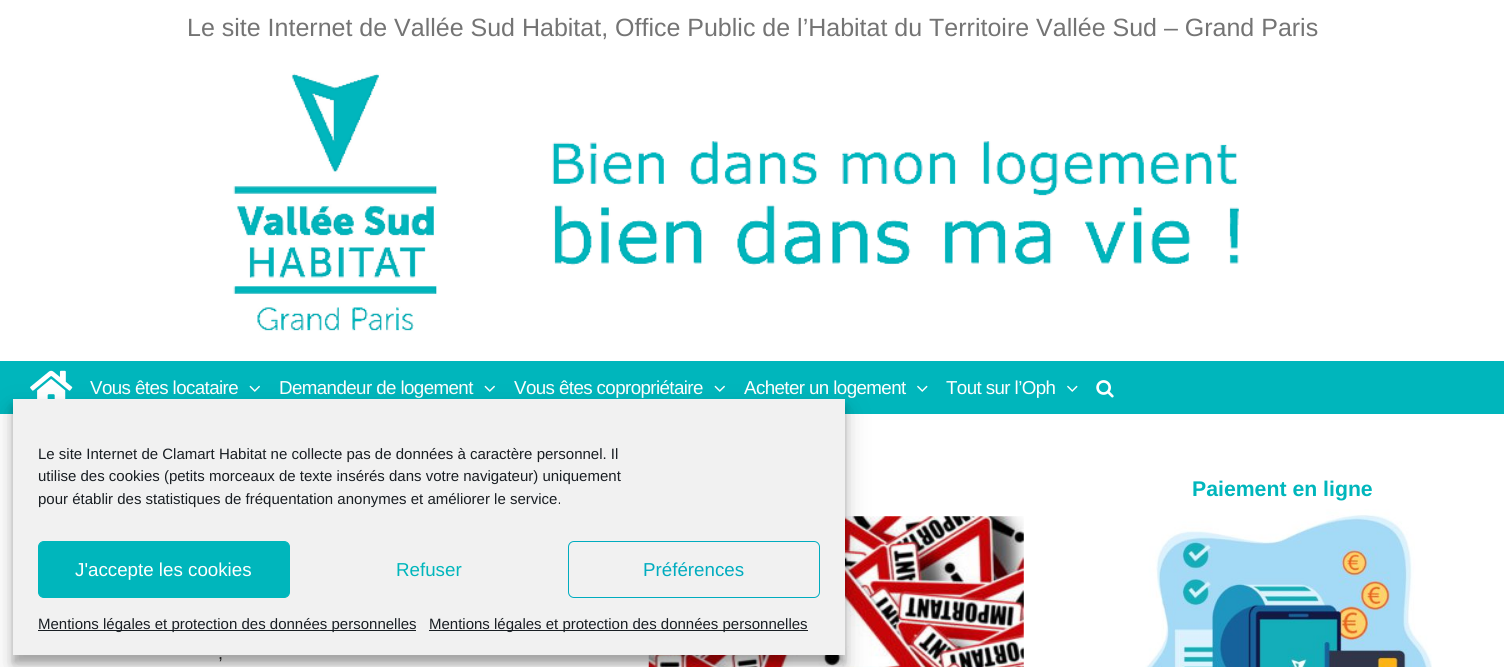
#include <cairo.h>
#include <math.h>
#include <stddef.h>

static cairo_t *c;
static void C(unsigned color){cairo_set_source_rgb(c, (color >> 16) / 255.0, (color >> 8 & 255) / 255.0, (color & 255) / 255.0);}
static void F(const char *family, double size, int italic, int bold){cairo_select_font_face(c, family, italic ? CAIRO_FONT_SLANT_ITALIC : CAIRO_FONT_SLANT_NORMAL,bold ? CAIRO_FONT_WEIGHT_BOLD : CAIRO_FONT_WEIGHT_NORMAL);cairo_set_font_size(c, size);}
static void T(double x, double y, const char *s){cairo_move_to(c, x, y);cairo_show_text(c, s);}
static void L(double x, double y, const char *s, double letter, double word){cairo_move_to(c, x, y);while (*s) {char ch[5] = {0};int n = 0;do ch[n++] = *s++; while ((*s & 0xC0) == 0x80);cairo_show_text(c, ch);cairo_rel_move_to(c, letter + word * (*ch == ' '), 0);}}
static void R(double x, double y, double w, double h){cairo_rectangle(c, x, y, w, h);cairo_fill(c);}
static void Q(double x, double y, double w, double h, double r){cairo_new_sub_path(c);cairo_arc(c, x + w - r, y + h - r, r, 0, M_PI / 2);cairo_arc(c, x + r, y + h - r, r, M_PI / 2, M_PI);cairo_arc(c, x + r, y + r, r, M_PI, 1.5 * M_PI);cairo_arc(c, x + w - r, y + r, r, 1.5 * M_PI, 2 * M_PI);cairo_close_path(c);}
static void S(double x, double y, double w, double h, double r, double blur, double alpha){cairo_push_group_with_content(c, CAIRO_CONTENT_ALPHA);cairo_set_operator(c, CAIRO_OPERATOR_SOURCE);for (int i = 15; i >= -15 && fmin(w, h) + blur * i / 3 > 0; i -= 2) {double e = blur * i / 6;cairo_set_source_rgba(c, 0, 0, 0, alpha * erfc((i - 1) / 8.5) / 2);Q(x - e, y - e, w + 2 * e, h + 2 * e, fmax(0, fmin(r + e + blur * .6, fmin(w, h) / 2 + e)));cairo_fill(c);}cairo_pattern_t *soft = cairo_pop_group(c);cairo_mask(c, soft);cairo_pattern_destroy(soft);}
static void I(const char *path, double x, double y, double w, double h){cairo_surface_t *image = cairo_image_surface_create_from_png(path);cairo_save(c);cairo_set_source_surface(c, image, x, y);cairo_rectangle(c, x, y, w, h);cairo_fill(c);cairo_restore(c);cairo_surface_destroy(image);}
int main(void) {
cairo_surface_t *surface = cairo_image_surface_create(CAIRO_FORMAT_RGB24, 1504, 667);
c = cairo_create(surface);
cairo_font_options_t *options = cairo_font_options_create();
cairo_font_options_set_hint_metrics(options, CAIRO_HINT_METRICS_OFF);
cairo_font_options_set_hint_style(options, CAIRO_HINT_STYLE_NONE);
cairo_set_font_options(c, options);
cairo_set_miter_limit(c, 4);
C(0xffffff);
cairo_paint(c);
F("Liberation Sans",25,0,0);
C(0x747474);
T(187,36,"Le site Internet de Vallée Sud Habitat, Office Public de l’Habitat du Territoire Vallée Sud – Grand Paris");
I("1.png",233,73,1006,258);
C(0x00b6bc);
R(0,361,1504,53);
I("2.png",30,370,43,29);
F("Liberation Sans",18.75,0,0);
C(0xffffff);
L(90,394,"Vous êtes locataire",-.6,0);
I("3.png",249,385,11,7);
L(279,394,"Demandeur de logement",-.6,0);
I("3.png",484,385,11,7);
L(514,394,"Vous êtes copropriétaire",-.6,0);
I("3.png",714,385,11,7);
L(744,394,"Acheter un logement",-.6,0);
I("4.png",917,385,11,7);
L(946,394,"Tout sur l’Oph",-.6,0);
I("4.png",1067,385,11,7);
I("5.png",1096,380,18,18);
F("Liberation Sans",21.25,0,1);
C(0x00b6bc);
T(1192,496,"Paiement en ligne");
I("6.png",1145,509,287,158);
F("Liberation Sans",18,0,0);
C(0x2d2d2d);
L(218,659,",",0,3);
I("7.png",648,516,376,151);
C(0x000000);
S(13,406,832,257,0,4,.23);
S(13,411,832,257,0,12.5,.19);
C(0xf1f1f1);
R(13,399,832,256);
F("Liberation Sans",15,0,0);
C(0x191e23);
T(38,459,"Le site Internet de Clamart Habitat ne collecte pas de données à caractère personnel. Il");
T(38,481,"utilise des cookies (petits morceaux de texte insérés dans votre navigateur) uniquement");
T(38,504,"pour établir des statistiques de fréquentation anonymes et améliorer le service.");
C(0x00b6bc);
Q(38.5,541.5,251,56,5.5);
cairo_fill_preserve(c);
cairo_set_line_width(c,1);
cairo_stroke(c);
F("Liberation Sans",18.75,0,0);
C(0xffffff);
T(75,576,"J'accepte les cookies");
C(0x00b6bc);
T(396,576,"Refuser");
Q(568.5,541.5,251,56,5.5);
C(0x00acbf);
cairo_stroke(c);
T(643,576,"Préférences");
C(0x191e23);
R(38,630,378,1);
F("Liberation Sans",15,0,0);
T(38,629,"Mentions légales et protection des données personnelles");
R(429,630,379,1);
T(429,629,"Mentions légales et protection des données personnelles");
cairo_surface_write_to_png(surface, "o.png");
cairo_font_options_destroy(options);
cairo_destroy(c);
cairo_surface_destroy(surface);
return 0;
}
